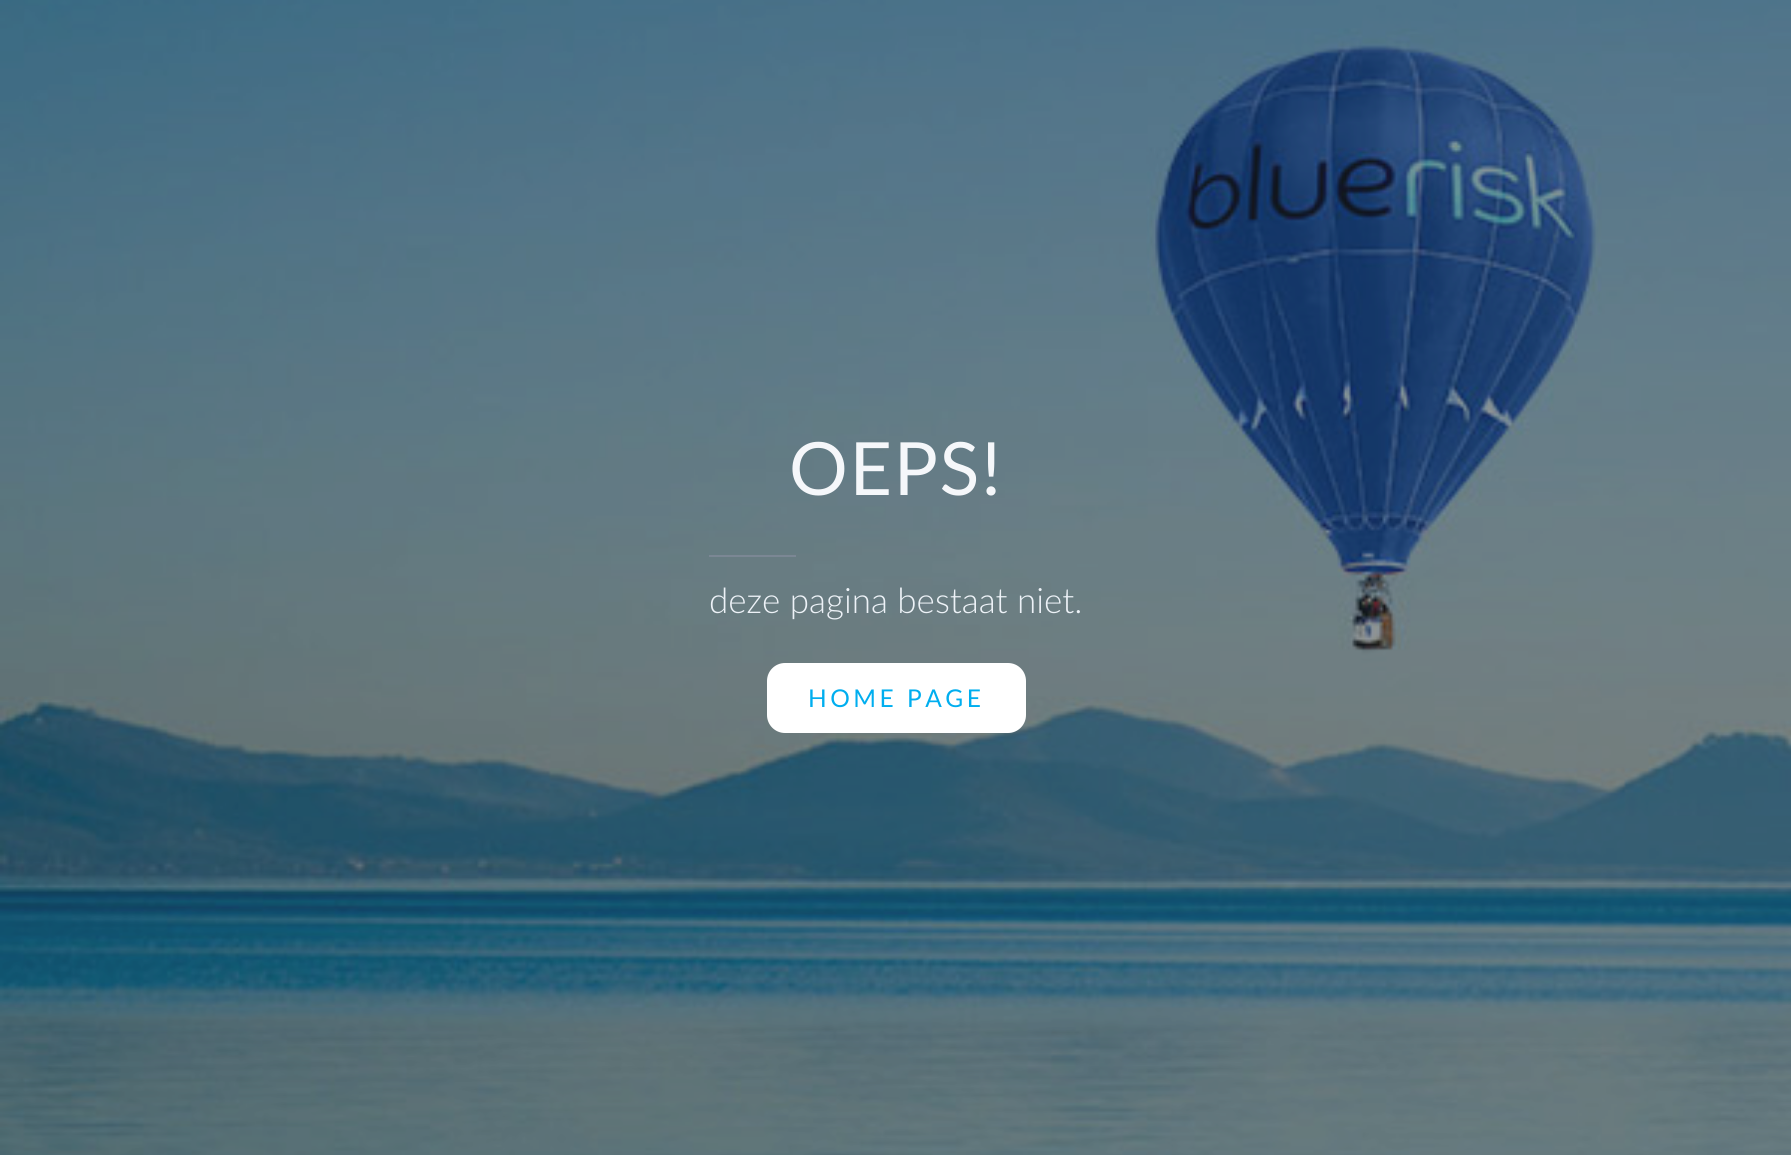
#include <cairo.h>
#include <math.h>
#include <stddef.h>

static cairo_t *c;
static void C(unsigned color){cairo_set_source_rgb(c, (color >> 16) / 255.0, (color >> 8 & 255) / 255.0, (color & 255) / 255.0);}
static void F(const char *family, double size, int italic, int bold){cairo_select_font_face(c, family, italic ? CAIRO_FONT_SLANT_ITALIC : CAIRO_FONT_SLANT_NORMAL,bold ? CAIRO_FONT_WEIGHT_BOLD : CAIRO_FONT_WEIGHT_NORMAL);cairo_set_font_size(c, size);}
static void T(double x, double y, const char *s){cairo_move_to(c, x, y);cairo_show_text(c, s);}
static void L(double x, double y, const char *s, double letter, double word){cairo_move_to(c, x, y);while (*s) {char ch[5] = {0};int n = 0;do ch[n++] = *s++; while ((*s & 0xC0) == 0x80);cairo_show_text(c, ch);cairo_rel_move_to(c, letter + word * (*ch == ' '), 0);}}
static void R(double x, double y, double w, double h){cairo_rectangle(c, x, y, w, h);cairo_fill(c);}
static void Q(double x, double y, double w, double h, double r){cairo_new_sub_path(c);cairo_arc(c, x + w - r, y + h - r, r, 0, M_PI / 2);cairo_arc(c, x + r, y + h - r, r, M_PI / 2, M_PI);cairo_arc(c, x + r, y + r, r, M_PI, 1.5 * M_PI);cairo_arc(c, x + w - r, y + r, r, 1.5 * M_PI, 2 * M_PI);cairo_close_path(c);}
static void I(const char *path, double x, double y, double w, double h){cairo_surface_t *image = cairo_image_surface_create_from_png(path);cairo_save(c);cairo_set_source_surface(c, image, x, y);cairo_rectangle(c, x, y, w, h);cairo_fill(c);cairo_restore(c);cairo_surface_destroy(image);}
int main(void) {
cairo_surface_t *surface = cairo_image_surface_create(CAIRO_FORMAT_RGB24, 1791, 1155);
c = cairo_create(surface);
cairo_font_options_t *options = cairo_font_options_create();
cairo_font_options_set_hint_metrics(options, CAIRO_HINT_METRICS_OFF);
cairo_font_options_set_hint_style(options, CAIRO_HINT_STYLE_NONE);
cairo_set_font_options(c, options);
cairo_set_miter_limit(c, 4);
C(0xffffff);
cairo_paint(c);
I("1.png",0,0,1791,1155);
F("Lato",73.5,0,0);
C(0xf5f7fa);
L(789,495,"OEPS!",1.75,0);
C(0x7b8794);
R(709,555,87,2);
F("Lato Light",35,0,0);
C(0xedf2f7);
T(709,613,"deze pagina bestaat niet.");
C(0xffffff);
Q(767,663,259,70,18);
cairo_fill(c);
F("Lato",24.5,0,0);
C(0x00aeef);
L(808,707,"HOME PAGE",3.5,0);
cairo_surface_write_to_png(surface, "o.png");
cairo_font_options_destroy(options);
cairo_destroy(c);
cairo_surface_destroy(surface);
return 0;
}
